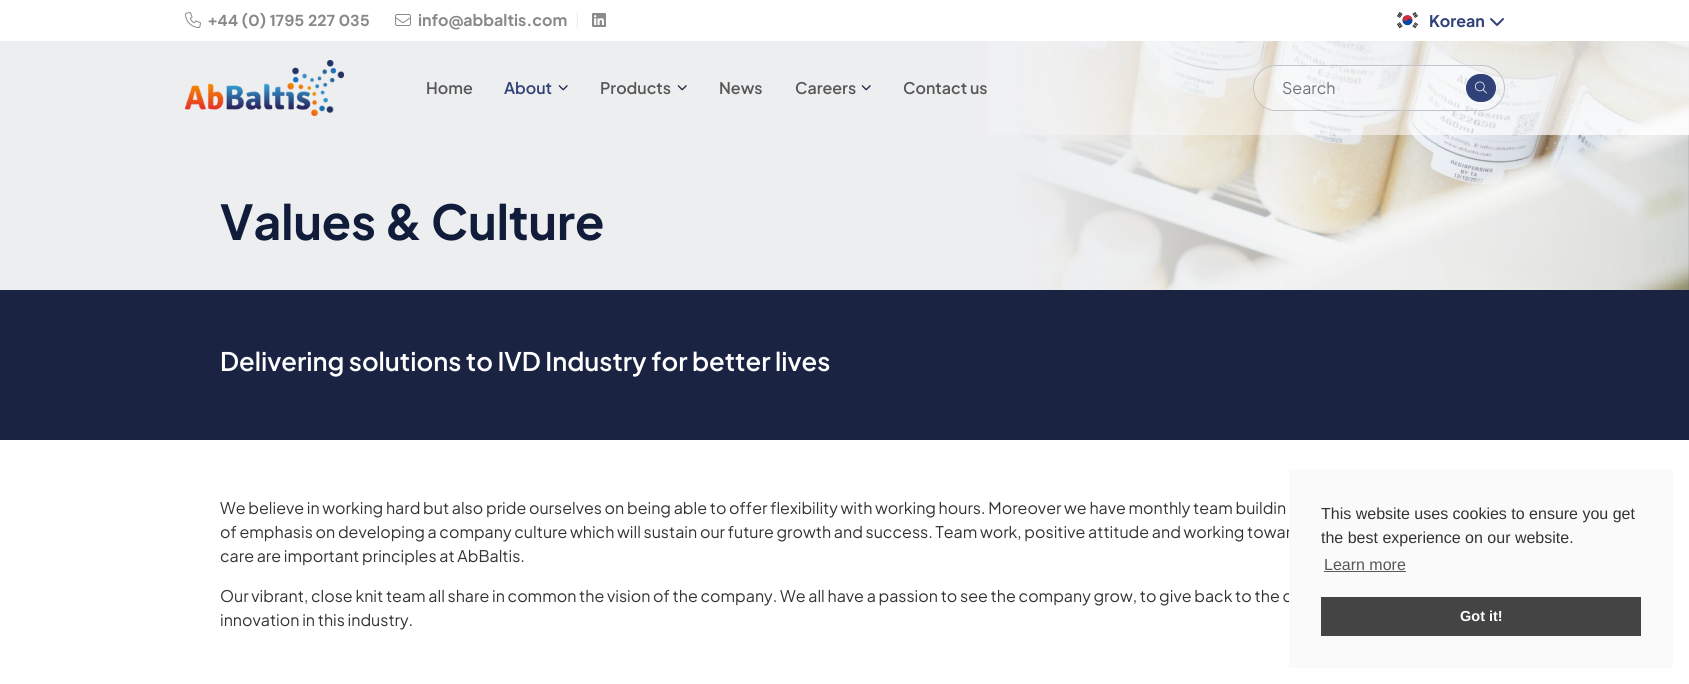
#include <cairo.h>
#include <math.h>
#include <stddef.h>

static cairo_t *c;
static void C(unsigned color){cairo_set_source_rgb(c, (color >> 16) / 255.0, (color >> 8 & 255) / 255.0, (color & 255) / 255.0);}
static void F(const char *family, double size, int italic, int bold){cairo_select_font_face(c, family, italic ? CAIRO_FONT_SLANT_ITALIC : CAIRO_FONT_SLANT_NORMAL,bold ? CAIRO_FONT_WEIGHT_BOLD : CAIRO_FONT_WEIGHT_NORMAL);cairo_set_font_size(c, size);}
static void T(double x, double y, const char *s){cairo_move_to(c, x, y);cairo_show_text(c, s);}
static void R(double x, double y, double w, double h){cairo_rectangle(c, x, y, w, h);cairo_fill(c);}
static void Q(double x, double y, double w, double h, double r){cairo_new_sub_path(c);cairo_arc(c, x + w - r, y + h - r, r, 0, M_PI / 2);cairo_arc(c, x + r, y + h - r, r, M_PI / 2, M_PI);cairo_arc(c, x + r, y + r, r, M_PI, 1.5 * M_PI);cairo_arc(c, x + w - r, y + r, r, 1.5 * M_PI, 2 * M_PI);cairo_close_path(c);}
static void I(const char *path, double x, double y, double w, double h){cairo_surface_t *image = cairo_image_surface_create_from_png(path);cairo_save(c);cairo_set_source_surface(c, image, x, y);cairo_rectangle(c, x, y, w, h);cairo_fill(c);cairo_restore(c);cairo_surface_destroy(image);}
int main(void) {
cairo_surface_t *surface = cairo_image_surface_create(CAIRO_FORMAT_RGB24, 1689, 684);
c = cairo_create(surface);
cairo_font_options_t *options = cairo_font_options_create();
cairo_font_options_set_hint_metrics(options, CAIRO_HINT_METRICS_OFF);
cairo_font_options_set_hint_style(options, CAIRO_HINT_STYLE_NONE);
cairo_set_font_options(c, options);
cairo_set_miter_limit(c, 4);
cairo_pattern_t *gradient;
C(0xffffff);
cairo_paint(c);
C(0x1a2442);
R(1688,41,1,249);
I("10.png",1017,41,672,249);
gradient = cairo_pattern_create_linear(0,145,1689,145);
cairo_pattern_add_color_stop_rgba(gradient,.6,0.929,0.933,0.941,1);
cairo_pattern_add_color_stop_rgba(gradient,1,0.929,0.933,0.941,0);
cairo_set_source(c,gradient);
cairo_pattern_destroy(gradient);
R(0,41,1674,249);
gradient = cairo_pattern_create_linear(0,68,1689,67);
cairo_pattern_add_color_stop_rgba(gradient,.5,0,0,0,0);
cairo_pattern_add_color_stop_rgba(gradient,.5,1,1,1,0);
cairo_pattern_add_color_stop_rgba(gradient,1,1,1,1,.85);
cairo_set_source(c,gradient);
cairo_pattern_destroy(gradient);
R(987,41,702,94);
I("1.png",185,12,16,16);
F("DM Sans",16,0,1);
C(0x898989);
T(208,26,"+44 (0) 1795 227 035");
I("2.png",395,14,16,12);
F("Plus Jakarta Sans",16,0,1);
T(418,26,"info@abbaltis.com");
F("Plus Jakarta Sans Light",16,0,0);
C(0xe7ebf0);
T(575,26,"|");
I("3.png",592,13,14,14);
I("4.png",1397,12,21,17);
F("Plus Jakarta Sans",16,0,1);
C(0x304177);
T(1429,27,"Korean");
I("5.png",1490,18,14,8);
I("6.png",185,60,159,56);
F("Plus Jakarta Sans SemiBold",16,0,0);
C(0x575757);
T(426,94,"Home");
C(0x304177);
T(504,94,"About");
I("7.png",558,85,10,6);
C(0x575757);
T(600,94,"Products");
I("7.png",677,85,10,6);
T(719,94,"News");
T(795,94,"Careers");
I("8.png",861,85,10,6);
T(903,94,"Contact us");
cairo_set_source_rgba(c,1,1,1,0.2);
Q(1253.5,65.5,251,45,22.5);
cairo_fill_preserve(c);
C(0xc1c4ca);
cairo_set_line_width(c,1);
cairo_stroke(c);
F("Plus Jakarta Sans",16,0,0);
C(0x6c757d);
T(1282,94,"Search");
C(0x304177);
Q(1466.5,74.5,29,27,13.5);
cairo_fill_preserve(c);
cairo_stroke(c);
I("9.png",1475,81,12,13);
F("Plus Jakarta Sans",48,0,1);
C(0x101c3a);
T(220,240,"Values & Culture");
C(0x1a2442);
R(0,290,1689,150);
F("Plus Jakarta Sans SemiBold",25.6,0,0);
C(0xffffff);
T(220,371,"Delivering solutions to IVD Industry for better lives");
F("Plus Jakarta Sans",16,0,0);
C(0x333333);
T(220,514,"We believe in working hard but also pride ourselves on being able to offer flexibility with working hours. Moreover we have monthly team buildin");
T(220,538,"of emphasis on developing a company culture which will sustain our future growth and success. Team work, positive attitude and working towar");
T(220,562,"care are important principles at AbBaltis.");
T(220,602,"Our vibrant, close knit team all share in common the vision of the company. We all have a passion to see the company grow, to give back to the c");
T(220,626,"innovation in this industry.");
C(0xfafafa);
R(1289,470,384,198);
F("Liberation Sans",16,0,0);
C(0x333333);
T(1321,519,"This website uses cookies to ensure you get");
T(1321,543,"the best experience on our website.");
C(0x575757);
T(1324,570,"Learn more");
C(0x5b5b5b);
R(1324,571,82,1);
C(0x444444);
R(1321,597,320,39);
F("Liberation Sans",14.5,0,1);
C(0xffffff);
T(1460,621,"Got it!");
cairo_surface_write_to_png(surface, "o.png");
cairo_font_options_destroy(options);
cairo_destroy(c);
cairo_surface_destroy(surface);
return 0;
}
